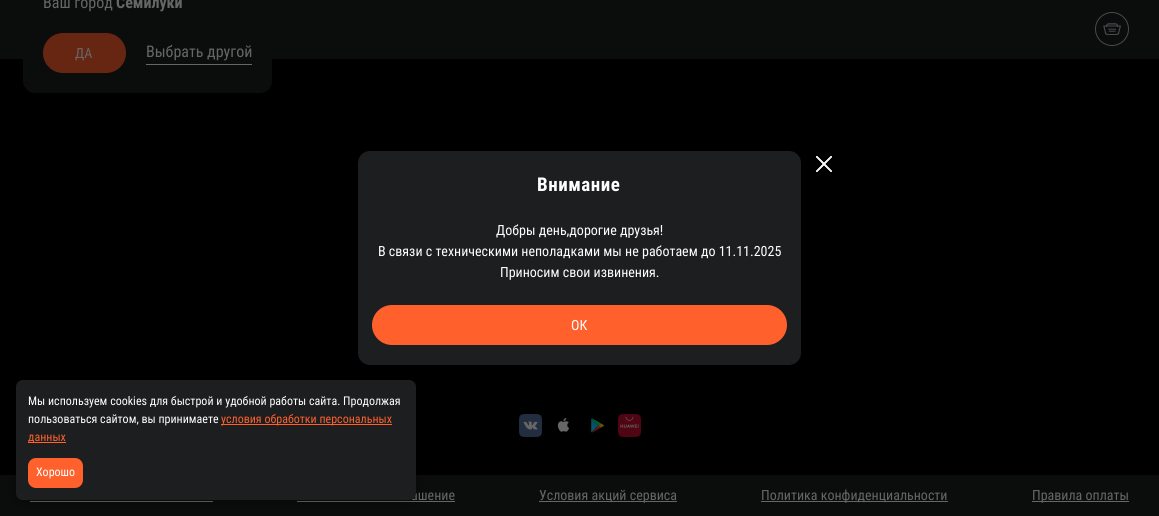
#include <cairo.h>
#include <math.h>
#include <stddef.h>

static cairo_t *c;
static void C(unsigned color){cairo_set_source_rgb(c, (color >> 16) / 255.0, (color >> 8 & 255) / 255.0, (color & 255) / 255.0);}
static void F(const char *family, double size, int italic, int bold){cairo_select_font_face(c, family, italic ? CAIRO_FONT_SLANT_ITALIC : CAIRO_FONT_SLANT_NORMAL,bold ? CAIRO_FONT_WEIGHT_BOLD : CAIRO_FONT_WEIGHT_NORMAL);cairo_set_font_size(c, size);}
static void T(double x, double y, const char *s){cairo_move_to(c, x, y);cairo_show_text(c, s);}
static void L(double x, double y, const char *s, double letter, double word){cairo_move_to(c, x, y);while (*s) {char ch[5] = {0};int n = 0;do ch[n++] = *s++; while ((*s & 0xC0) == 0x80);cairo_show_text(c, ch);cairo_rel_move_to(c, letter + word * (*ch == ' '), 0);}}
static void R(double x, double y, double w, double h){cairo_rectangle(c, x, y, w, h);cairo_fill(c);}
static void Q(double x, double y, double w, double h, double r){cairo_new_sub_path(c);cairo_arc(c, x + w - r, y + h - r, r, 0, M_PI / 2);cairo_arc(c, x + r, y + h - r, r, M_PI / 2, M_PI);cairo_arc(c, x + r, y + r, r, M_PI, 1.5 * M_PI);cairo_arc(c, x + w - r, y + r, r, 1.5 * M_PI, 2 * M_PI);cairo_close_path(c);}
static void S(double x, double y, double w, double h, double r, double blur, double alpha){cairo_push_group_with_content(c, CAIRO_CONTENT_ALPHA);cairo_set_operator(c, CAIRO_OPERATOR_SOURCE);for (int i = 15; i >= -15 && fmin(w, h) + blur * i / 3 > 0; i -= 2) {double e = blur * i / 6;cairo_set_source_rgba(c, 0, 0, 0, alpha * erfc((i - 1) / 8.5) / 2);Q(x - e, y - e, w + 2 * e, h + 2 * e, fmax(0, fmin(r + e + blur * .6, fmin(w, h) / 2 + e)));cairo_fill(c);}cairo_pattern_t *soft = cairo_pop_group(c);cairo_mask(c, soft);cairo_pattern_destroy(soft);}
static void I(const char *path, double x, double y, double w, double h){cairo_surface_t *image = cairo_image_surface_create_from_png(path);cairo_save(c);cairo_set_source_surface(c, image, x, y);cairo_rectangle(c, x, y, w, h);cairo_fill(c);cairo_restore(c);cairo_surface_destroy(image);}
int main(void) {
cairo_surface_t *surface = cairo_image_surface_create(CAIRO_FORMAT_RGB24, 1159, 516);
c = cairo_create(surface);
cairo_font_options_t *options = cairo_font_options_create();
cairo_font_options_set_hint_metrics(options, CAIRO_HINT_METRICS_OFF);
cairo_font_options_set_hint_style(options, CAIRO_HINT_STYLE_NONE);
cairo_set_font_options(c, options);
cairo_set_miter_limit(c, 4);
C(0x000000);
cairo_paint(c);
C(0x0b0c0c);
R(0,0,1159,59);
Q(23,-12,249,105,12);
cairo_fill(c);
F("Roboto Condensed",16,0,0);
C(0x666666);
T(43,8,"Ваш город");
F("Roboto Condensed",16,0,1);
T(116,8,"Семилуки");
C(0x662612);
Q(43,33,83,40,20);
cairo_fill(c);
F("Roboto Condensed",14,0,0);
C(0x666666);
T(75,58,"ДА");
R(146,64,106,1);
F("Roboto Condensed",16,0,0);
T(146,57,"Выбрать другой");
cairo_new_path(c);
cairo_arc(c,1112,29,16.5,0,2 * M_PI);
C(0x474b4c);
cairo_set_line_width(c,1);
cairo_stroke(c);
I("1.png",1103,23,18,12);
I("2.png",816,156,16,16);
C(0x1c1e1f);
Q(358,151,443,214,12);
cairo_fill(c);
F("Roboto Condensed",19,0,1);
C(0xffffff);
L(537,191,"Внимание",.5,0);
F("Roboto Condensed",14,0,0);
T(496,235,"Добры день,дорогие друзья!");
T(378,256,"В связи с техническими неполадками мы не работаем до 11.11.2025");
T(500,277,"Приносим свои извинения.");
C(0xff602c);
Q(372,305,415,40,20);
cairo_fill(c);
C(0xffffff);
T(571,330,"ОК");
C(0x0b0c0c);
R(0,475,1159,41);
C(0x666666);
R(297,501,158,1);
R(30,501,183,1);
C(0x000000);
S(16,380,400,120,7,7.5,.4);
C(0x666666);
T(411,500,"ашение");
C(0x1c1e1f);
Q(16,380,400,120,7);
cairo_fill(c);
F("Roboto Condensed",12,0,0);
C(0xffffff);
T(28,405,"Мы используем cookies для быстрой и удобной работы сайта. Продолжая");
T(28,423,"пользоваться сайтом, вы принимаете");
C(0xff602c);
R(221,424,171,1);
T(221,423,"условия обработки персональных");
R(28,442,38,1);
T(28,441,"данных");
Q(28,458,55,30,8);
cairo_fill(c);
C(0xffffff);
T(36,476,"Хорошо");
I("3.png",519,414,23,23);
I("4.png",557,418,13,14);
I("5.png",591,418,13,15);
I("6.png",618,414,23,23);
C(0x666666);
R(539,501,138,1);
F("Roboto Condensed",14,0,0);
T(539,500,"Условия акций сервиса");
R(761,501,187,1);
T(761,500,"Политика конфиденциальности");
R(1032,501,97,1);
T(1032,500,"Правила оплаты");
cairo_surface_write_to_png(surface, "o.png");
cairo_font_options_destroy(options);
cairo_destroy(c);
cairo_surface_destroy(surface);
return 0;
}
